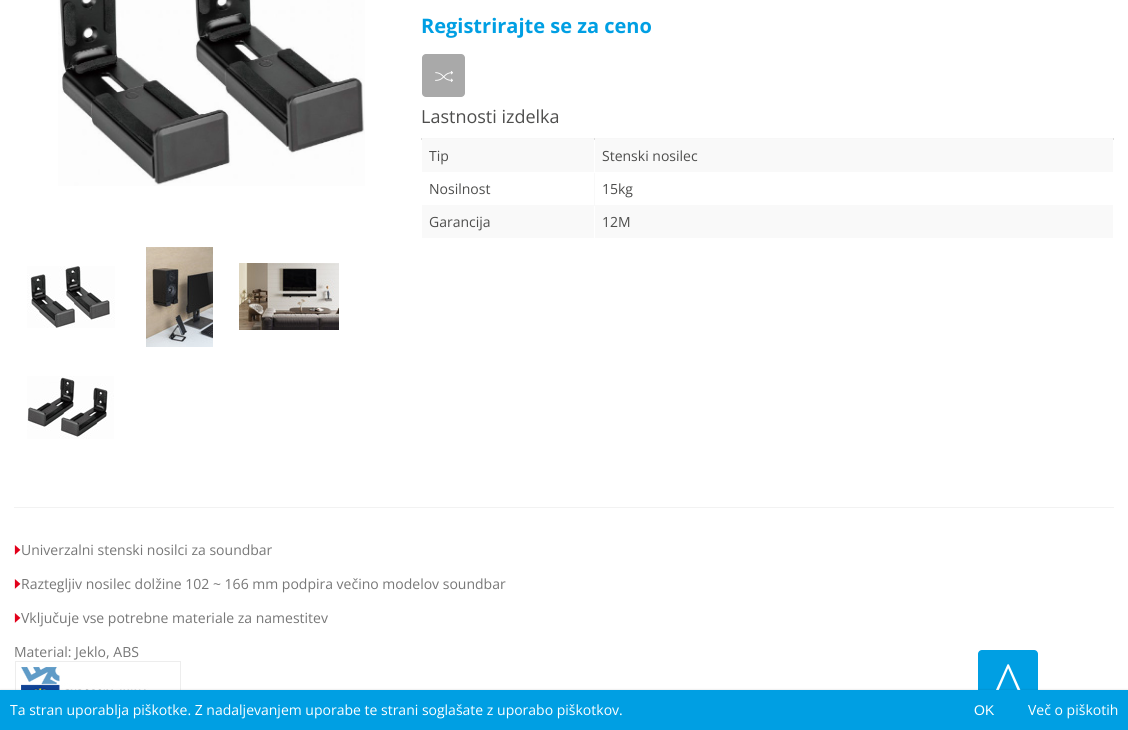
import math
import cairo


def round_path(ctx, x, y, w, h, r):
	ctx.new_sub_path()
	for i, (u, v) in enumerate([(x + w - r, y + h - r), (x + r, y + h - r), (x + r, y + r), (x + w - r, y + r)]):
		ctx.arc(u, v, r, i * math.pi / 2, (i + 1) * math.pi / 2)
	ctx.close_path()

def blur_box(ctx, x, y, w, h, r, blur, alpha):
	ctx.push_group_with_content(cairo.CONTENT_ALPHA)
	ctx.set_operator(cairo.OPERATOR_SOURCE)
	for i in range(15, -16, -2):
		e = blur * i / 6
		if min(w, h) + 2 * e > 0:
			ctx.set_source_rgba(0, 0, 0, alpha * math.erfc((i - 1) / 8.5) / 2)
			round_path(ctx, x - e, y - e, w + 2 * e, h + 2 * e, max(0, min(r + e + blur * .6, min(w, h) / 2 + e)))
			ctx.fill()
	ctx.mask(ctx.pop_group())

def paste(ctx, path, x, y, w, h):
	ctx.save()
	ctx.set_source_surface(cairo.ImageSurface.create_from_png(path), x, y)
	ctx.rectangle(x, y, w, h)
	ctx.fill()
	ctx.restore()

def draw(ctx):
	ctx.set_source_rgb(1, 1, 1)
	ctx.paint()
	paste(ctx, 'media/1.png', 58, 0, 307, 186)
	paste(ctx, 'media/2.png', 27, 266, 88, 62)
	paste(ctx, 'media/3.png', 146, 247, 67, 100)
	paste(ctx, 'media/4.png', 239, 263, 100, 67)
	paste(ctx, 'media/5.png', 27, 376, 87, 63)
	ctx.select_font_face('Open Sans', cairo.FONT_SLANT_NORMAL, cairo.FONT_WEIGHT_BOLD)
	ctx.set_font_size(20)
	ctx.set_source_rgb(0, 0.624, 0.89)
	ctx.move_to(421, 33)
	ctx.show_text('Registrirajte se za ceno')
	ctx.set_source_rgb(0.663, 0.663, 0.663)
	round_path(ctx, 422, 54, 43, 43, 4)
	ctx.fill()
	paste(ctx, 'media/6.png', 435, 71, 18, 11)
	ctx.select_font_face('Open Sans')
	ctx.set_font_size(18)
	ctx.set_source_rgb(0.306, 0.306, 0.302)
	ctx.move_to(421, 123)
	ctx.show_text('Lastnosti izdelka')
	ctx.set_source_rgb(0.965, 0.965, 0.965)
	ctx.rectangle(422, 138, 692, 1)
	ctx.fill()
	ctx.set_source_rgb(0.867, 0.867, 0.867)
	ctx.rectangle(421, 138, 1, 2)
	ctx.rectangle(1113, 138, 1, 2)
	ctx.rectangle(594, 138, 1, 2)
	ctx.fill()
	ctx.set_source_rgb(0.973, 0.973, 0.973)
	ctx.rectangle(422, 139, 172, 33)
	ctx.rectangle(594, 172, 1, 34)
	ctx.fill()
	ctx.set_source_rgb(1, 1, 1)
	ctx.rectangle(594, 172, 1, 1)
	ctx.fill()
	ctx.set_font_size(14)
	ctx.set_source_rgb(0.306, 0.306, 0.302)
	ctx.move_to(429, 161)
	ctx.show_text('Tip')
	ctx.set_source_rgb(0.973, 0.973, 0.973)
	ctx.rectangle(595, 139, 518, 33)
	ctx.fill()
	ctx.set_source_rgb(0.306, 0.306, 0.302)
	for x, y, s in [
		(602, 161, 'Stenski nosilec'),
		(429, 194, 'Nosilnost'),
		(602, 194, '15kg'),
	]:
		ctx.move_to(x, y)
		ctx.show_text(s)
	ctx.set_source_rgb(0.973, 0.973, 0.973)
	ctx.rectangle(422, 205, 172, 33)
	ctx.fill()
	ctx.set_source_rgb(0.306, 0.306, 0.302)
	ctx.move_to(429, 227)
	ctx.show_text('Garancija')
	ctx.set_source_rgb(0.973, 0.973, 0.973)
	ctx.rectangle(595, 205, 518, 33)
	ctx.fill()
	ctx.set_source_rgb(0.306, 0.306, 0.302)
	ctx.move_to(602, 227)
	ctx.show_text('12M')
	ctx.set_source_rgb(0.949, 0.949, 0.949)
	ctx.rectangle(14, 507, 1100, 1)
	ctx.fill()
	paste(ctx, 'media/7.png', 14, 545, 7, 10)
	ctx.set_source_rgb(0.467, 0.467, 0.467)
	ctx.move_to(21, 555)
	ctx.show_text('Univerzalni stenski nosilci za soundbar')
	paste(ctx, 'media/7.png', 14, 579, 7, 10)
	ctx.move_to(21, 589)
	ctx.show_text('Raztegljiv nosilec dolžine 102 ~ 166 mm podpira večino modelov soundbar')
	paste(ctx, 'media/7.png', 14, 613, 7, 10)
	ctx.move_to(21, 623)
	ctx.show_text('Vključuje vse potrebne materiale za namestitev')
	ctx.move_to(14, 657)
	ctx.show_text('Material: Jeklo, ABS')
	ctx.rectangle(15.5, 661.5, 165, 68)
	ctx.set_source_rgb(0.929, 0.929, 0.929)
	ctx.set_line_width(1)
	ctx.stroke()
	paste(ctx, 'media/8.png', 21, 667, 154, 23)
	ctx.set_source_rgb(0, 0.624, 0.89)
	round_path(ctx, 978, 650, 60, 50, 4)
	ctx.fill()
	ctx.select_font_face('Liberation Serif')
	ctx.set_font_size(56)
	ctx.set_source_rgb(1, 1, 1)
	ctx.move_to(995, 701)
	ctx.show_text('^')
	ctx.set_source_rgb(0, 0, 0)
	blur_box(ctx, 0, 690, 1128, 40, 0, 1, 0.15)
	ctx.set_source_rgb(0, 0.624, 0.89)
	ctx.rectangle(0, 690, 1128, 40)
	ctx.fill()
	ctx.select_font_face('Open Sans')
	ctx.set_font_size(14)
	ctx.set_source_rgb(1, 1, 1)
	ctx.move_to(10, 715)
	ctx.show_text('Ta stran uporablja piškotke. Z nadaljevanjem uporabe te strani soglašate z uporabo piškotkov.')
	ctx.select_font_face('Liberation Sans')
	ctx.move_to(974, 715)
	ctx.show_text('OK')
	ctx.select_font_face('Open Sans')
	ctx.move_to(1028, 715)
	ctx.show_text('Več o piškotih')


surface = cairo.ImageSurface(cairo.FORMAT_RGB24, 1128, 730)
ctx = cairo.Context(surface)
options = cairo.FontOptions()
options.set_hint_metrics(cairo.HINT_METRICS_OFF)
options.set_hint_style(cairo.HINT_STYLE_NONE)
ctx.set_font_options(options)
ctx.set_miter_limit(4)
draw(ctx)
surface.write_to_png('image.png')
